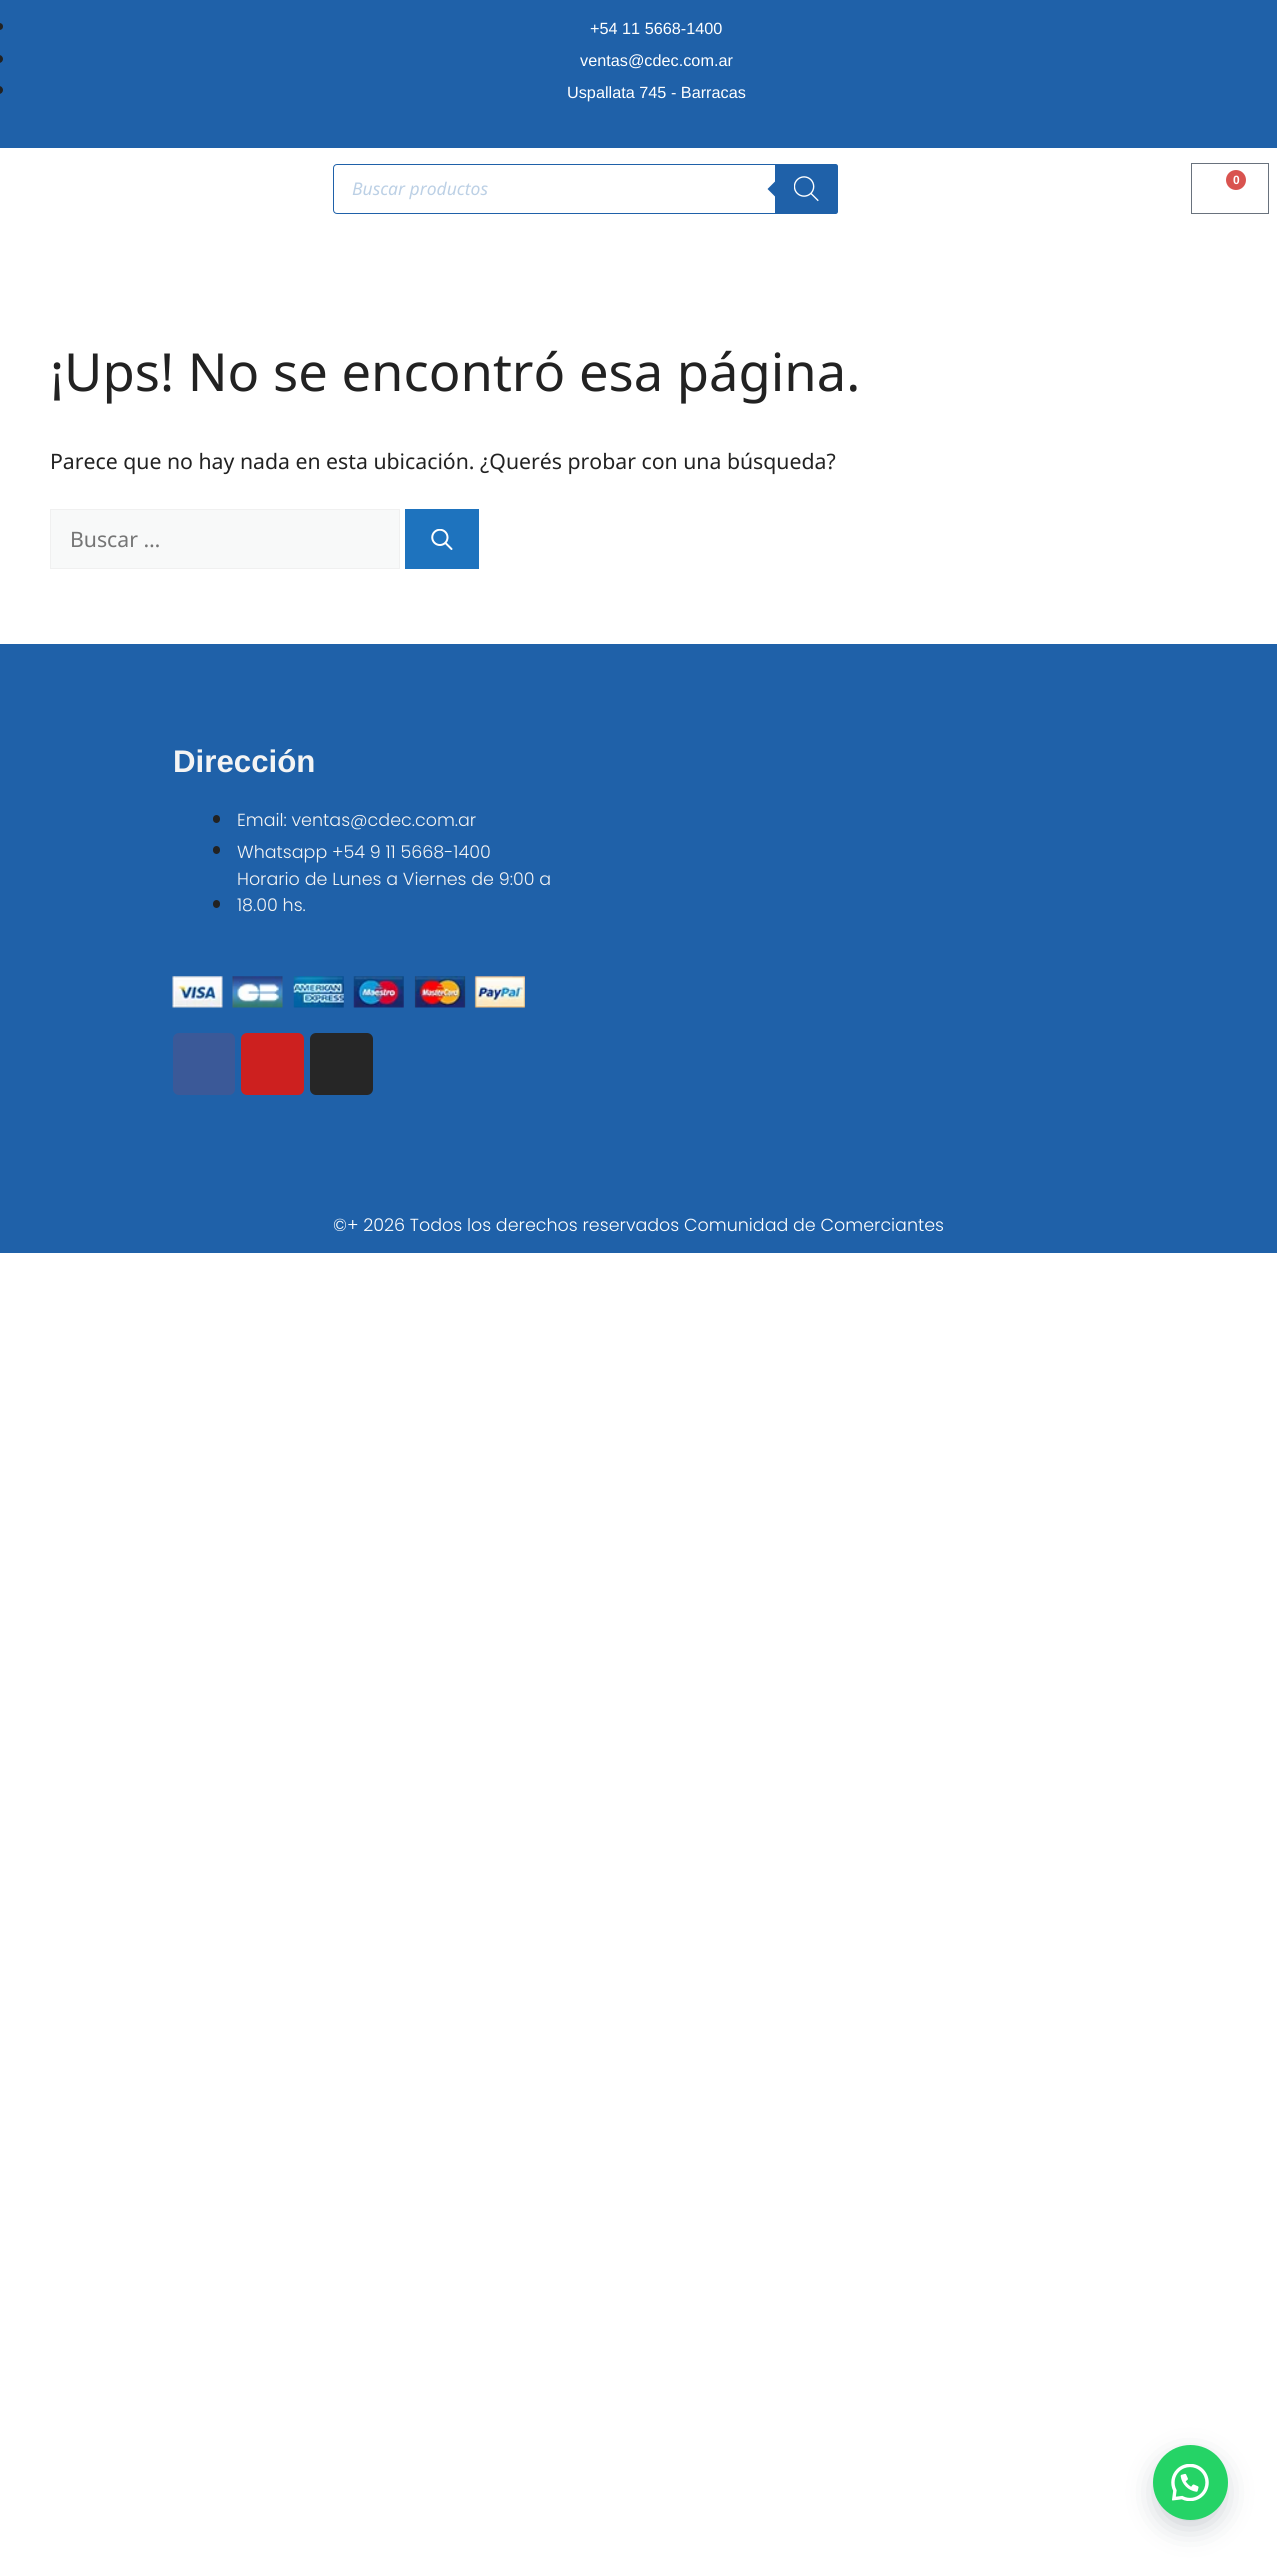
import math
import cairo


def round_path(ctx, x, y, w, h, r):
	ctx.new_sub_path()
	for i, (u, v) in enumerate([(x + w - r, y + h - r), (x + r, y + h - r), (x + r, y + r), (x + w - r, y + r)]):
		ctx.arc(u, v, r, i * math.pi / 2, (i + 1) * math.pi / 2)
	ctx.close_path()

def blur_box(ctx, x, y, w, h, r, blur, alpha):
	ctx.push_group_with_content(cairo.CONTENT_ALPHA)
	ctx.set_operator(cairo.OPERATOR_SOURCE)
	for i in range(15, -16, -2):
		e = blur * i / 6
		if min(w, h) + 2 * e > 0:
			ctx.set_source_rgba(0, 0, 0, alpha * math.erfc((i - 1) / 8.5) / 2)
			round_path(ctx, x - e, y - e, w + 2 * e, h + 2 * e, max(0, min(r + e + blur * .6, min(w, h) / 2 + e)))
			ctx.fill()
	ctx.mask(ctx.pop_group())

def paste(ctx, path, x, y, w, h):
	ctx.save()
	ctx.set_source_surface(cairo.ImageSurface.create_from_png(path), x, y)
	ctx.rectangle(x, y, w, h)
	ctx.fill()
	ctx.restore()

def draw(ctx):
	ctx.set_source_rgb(1, 1, 1)
	ctx.paint()
	ctx.set_source_rgb(0.122, 0.38, 0.663)
	ctx.rectangle(0, 0, 1277, 148)
	ctx.fill()
	ctx.set_source_rgb(0.133, 0.133, 0.133)
	ctx.arc(-0.5, 26.5, 3.5, 0, 2 * math.pi)
	ctx.fill()
	ctx.select_font_face('Liberation Sans')
	ctx.set_font_size(16.25)
	ctx.set_source_rgb(1, 1, 1)
	ctx.move_to(590, 34)
	ctx.show_text('+54 11 5668-1400')
	ctx.set_source_rgb(0.133, 0.133, 0.133)
	round_path(ctx, -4, 55, 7, 8, 4)
	ctx.fill()
	ctx.set_source_rgb(1, 1, 1)
	ctx.move_to(580, 66)
	ctx.show_text('ventas@cdec.com.ar')
	ctx.set_source_rgb(0.133, 0.133, 0.133)
	round_path(ctx, -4, 86, 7, 8, 4)
	ctx.fill()
	ctx.set_source_rgb(1, 1, 1)
	ctx.move_to(567, 98)
	ctx.show_text('Uspallata 745 - Barracas')
	ctx.rectangle(1191.5, 163.5, 77, 50)
	ctx.set_source_rgb(0.412, 0.447, 0.49)
	ctx.set_line_width(1)
	ctx.stroke()
	ctx.set_source_rgb(0.851, 0.325, 0.31)
	ctx.arc(1236, 180, 10, 0, 2 * math.pi)
	ctx.fill()
	ctx.select_font_face('Liberation Sans', cairo.FONT_SLANT_NORMAL, cairo.FONT_WEIGHT_BOLD)
	ctx.set_font_size(12)
	ctx.set_source_rgb(1, 1, 1)
	ctx.move_to(1233, 184)
	ctx.show_text('0')
	round_path(ctx, 333.5, 164.5, 504, 49, 3.5)
	ctx.set_source_rgb(0.122, 0.38, 0.663)
	ctx.stroke()
	ctx.select_font_face('Noto Sans', cairo.FONT_SLANT_ITALIC)
	ctx.set_font_size(17.5)
	ctx.set_source_rgb(0.737, 0.816, 0.898)
	ctx.move_to(352, 195)
	ctx.show_text('Buscar productos')
	ctx.set_source_rgb(0.122, 0.38, 0.663)
	ctx.new_path()
	ctx.move_to(775, 164)
	ctx.line_to(835.5, 164)
	ctx.curve_to(837, 164, 838, 165, 838, 166.5)
	ctx.line_to(838, 211.5)
	ctx.curve_to(838, 213, 837, 214, 835.5, 214)
	ctx.line_to(775, 214)
	ctx.close_path()
	ctx.fill()
	ctx.new_path()
	ctx.move_to(777.5, 179)
	ctx.line_to(777.5, 199)
	ctx.line_to(767.5, 189)
	ctx.close_path()
	ctx.fill()
	paste(ctx, 'media/1.png', 794, 176, 25, 26)
	ctx.select_font_face('Noto Sans')
	ctx.set_font_size(52.5)
	ctx.set_source_rgb(0.133, 0.133, 0.133)
	ctx.move_to(50, 391)
	ctx.show_text('¡Ups! No se encontró esa página.')
	ctx.set_font_size(21.25)
	ctx.move_to(50, 469)
	ctx.show_text('Parece que no hay nada en esta ubicación. ¿Querés probar con una búsqueda?')
	ctx.set_source_rgb(0.969, 0.973, 0.976)
	ctx.rectangle(50.5, 509.5, 349, 59)
	ctx.fill_preserve()
	ctx.set_source_rgb(0.941, 0.941, 0.941)
	ctx.stroke()
	ctx.set_source_rgb(0.459, 0.459, 0.459)
	ctx.move_to(70, 547)
	ctx.show_text('Buscar …')
	ctx.set_source_rgb(0.118, 0.451, 0.745)
	ctx.rectangle(405, 509, 74, 60)
	ctx.fill()
	paste(ctx, 'media/2.png', 431, 529, 22, 21)
	ctx.set_source_rgb(0.122, 0.38, 0.663)
	ctx.rectangle(0, 644, 1277, 609)
	ctx.fill()
	ctx.select_font_face('Liberation Sans', cairo.FONT_SLANT_NORMAL, cairo.FONT_WEIGHT_BOLD)
	ctx.set_font_size(31.25)
	ctx.set_source_rgb(0.957, 0.957, 0.957)
	ctx.move_to(173, 772)
	ctx.show_text('Dirección')
	ctx.set_source_rgb(0.133, 0.133, 0.133)
	round_path(ctx, 213, 815, 7, 8, 3.5)
	ctx.fill()
	ctx.select_font_face('Poppins Light')
	ctx.set_font_size(17.5)
	ctx.set_source_rgb(0.957, 0.957, 0.957)
	ctx.move_to(237, 826)
	ctx.show_text('Email: ventas@cdec.com.ar')
	ctx.set_source_rgb(0.133, 0.133, 0.133)
	round_path(ctx, 213, 846, 7, 8, 3.5)
	ctx.fill()
	ctx.set_source_rgb(0.957, 0.957, 0.957)
	ctx.move_to(237, 858)
	ctx.show_text('Whatsapp +54 9 11 5668-1400')
	ctx.set_source_rgb(0.133, 0.133, 0.133)
	round_path(ctx, 213, 900, 7, 8, 3.5)
	ctx.fill()
	ctx.set_source_rgb(0.957, 0.957, 0.957)
	ctx.move_to(237, 885)
	ctx.show_text('Horario de Lunes a Viernes de 9:00 a')
	ctx.move_to(237, 911)
	ctx.show_text('18.00 hs.')
	paste(ctx, 'media/3.png', 172, 976, 353, 32)
	ctx.set_source_rgb(0.231, 0.349, 0.596)
	round_path(ctx, 173, 1033, 62, 62, 6)
	ctx.fill()
	ctx.set_source_rgb(0.804, 0.125, 0.122)
	round_path(ctx, 241, 1033, 63, 62, 6)
	ctx.fill()
	ctx.set_source_rgb(0.149, 0.149, 0.149)
	round_path(ctx, 310, 1033, 63, 62, 6)
	ctx.fill()
	ctx.set_source_rgb(1, 1, 1)
	ctx.move_to(333, 1231)
	ctx.show_text('©+ 2026 Todos los derechos reservados Comunidad de Comerciantes')
	ctx.set_source_rgb(0.176, 0.243, 0.31)
	blur_box(ctx, 1159, 2461, 62, 63, 31, 15.5, 0.3)
	ctx.set_source_rgb(0.145, 0.827, 0.4)
	ctx.arc(1190.5, 2482.5, 37.5, 0, 2 * math.pi)
	ctx.fill()
	paste(ctx, 'media/4.png', 1171, 2464, 38, 37)


surface = cairo.ImageSurface(cairo.FORMAT_RGB24, 1277, 2570)
ctx = cairo.Context(surface)
options = cairo.FontOptions()
options.set_hint_metrics(cairo.HINT_METRICS_OFF)
options.set_hint_style(cairo.HINT_STYLE_NONE)
ctx.set_font_options(options)
ctx.set_miter_limit(4)
draw(ctx)
surface.write_to_png('image.png')
